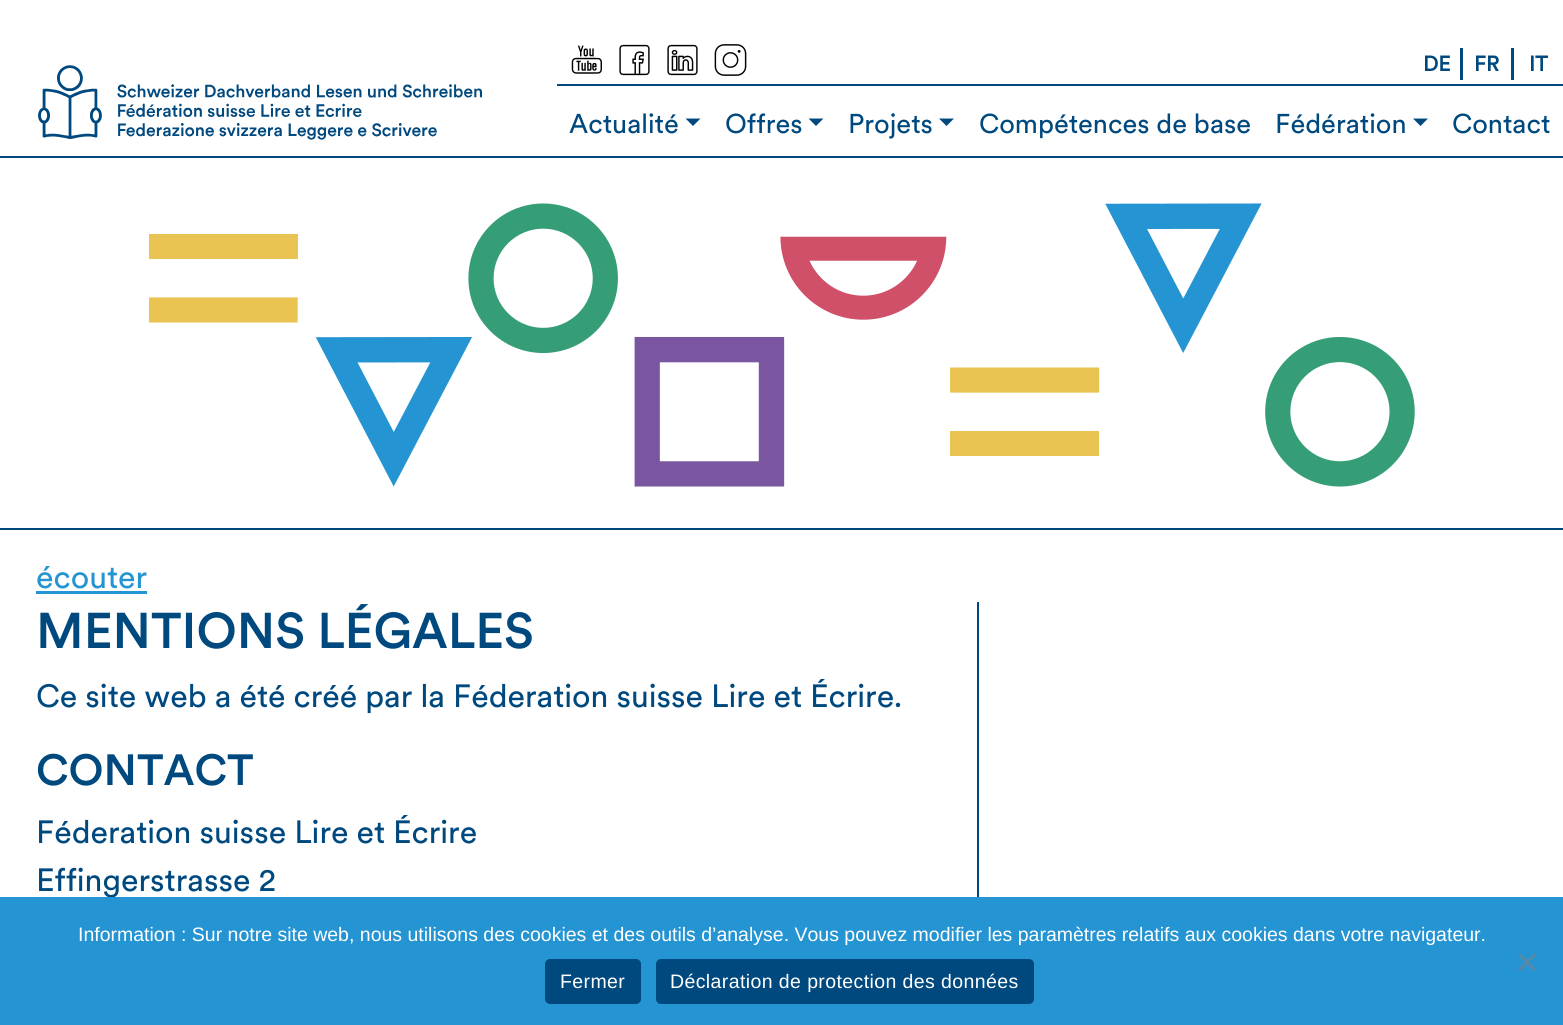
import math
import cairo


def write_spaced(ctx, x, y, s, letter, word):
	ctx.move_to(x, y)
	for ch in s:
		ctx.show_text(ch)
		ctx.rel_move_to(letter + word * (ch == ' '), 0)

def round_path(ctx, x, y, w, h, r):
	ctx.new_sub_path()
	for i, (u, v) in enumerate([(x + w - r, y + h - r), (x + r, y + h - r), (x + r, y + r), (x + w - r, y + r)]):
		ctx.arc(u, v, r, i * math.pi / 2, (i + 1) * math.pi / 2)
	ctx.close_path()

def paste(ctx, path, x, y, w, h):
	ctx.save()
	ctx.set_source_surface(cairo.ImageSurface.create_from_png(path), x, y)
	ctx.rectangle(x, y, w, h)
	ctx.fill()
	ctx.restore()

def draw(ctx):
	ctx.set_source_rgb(1, 1, 1)
	ctx.paint()
	ctx.set_source_rgb(0, 0.286, 0.498)
	ctx.rectangle(0, 156, 1563, 2)
	ctx.fill()
	paste(ctx, 'media/1.png', 38, 65, 444, 75)
	paste(ctx, 'media/2.png', 571, 45, 31, 29)
	paste(ctx, 'media/3.png', 619, 44, 31, 32)
	paste(ctx, 'media/4.png', 667, 44, 31, 32)
	paste(ctx, 'media/5.png', 714, 44, 33, 32)
	ctx.rectangle(1460, 48, 3, 32)
	ctx.fill()
	ctx.select_font_face('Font', cairo.FONT_SLANT_NORMAL, cairo.FONT_WEIGHT_BOLD)
	ctx.set_font_size(21)
	ctx.move_to(1423, 71)
	ctx.show_text('DE')
	ctx.rectangle(1511, 48, 3, 32)
	ctx.fill()
	ctx.move_to(1474, 71)
	ctx.show_text('FR')
	ctx.move_to(1529, 71)
	ctx.show_text('IT')
	ctx.rectangle(557, 84, 1006, 2)
	ctx.fill()
	ctx.select_font_face('Font')
	ctx.set_font_size(27)
	ctx.move_to(569, 133)
	ctx.show_text('Actualité')
	ctx.new_path()
	ctx.move_to(685.5, 118.5)
	ctx.line_to(700.5, 118.5)
	ctx.line_to(693, 126)
	ctx.close_path()
	ctx.fill()
	ctx.move_to(725, 133)
	ctx.show_text('Offres')
	ctx.new_path()
	ctx.move_to(808.5, 118.5)
	ctx.line_to(823.5, 118.5)
	ctx.line_to(816, 126)
	ctx.close_path()
	ctx.fill()
	ctx.move_to(848, 133)
	ctx.show_text('Projets')
	ctx.new_path()
	ctx.move_to(939, 118.5)
	ctx.line_to(954, 118.5)
	ctx.line_to(946.5, 126)
	ctx.close_path()
	ctx.fill()
	ctx.move_to(979, 133)
	ctx.show_text('Compétences de base')
	ctx.move_to(1275, 133)
	ctx.show_text('Fédération')
	ctx.new_path()
	ctx.move_to(1413, 118.5)
	ctx.line_to(1428, 118.5)
	ctx.line_to(1420.5, 126)
	ctx.close_path()
	ctx.fill()
	ctx.move_to(1452, 133)
	ctx.show_text('Contact')
	ctx.rectangle(0, 528, 1563, 2)
	ctx.fill()
	paste(ctx, 'media/6.png', 149, 203, 1266, 284)
	ctx.set_font_size(31.9)
	ctx.set_source_rgb(0.145, 0.58, 0.824)
	ctx.move_to(36, 588)
	ctx.show_text('écouter')
	ctx.rectangle(36, 591, 111, 3)
	ctx.fill()
	ctx.set_source_rgb(0, 0.286, 0.498)
	ctx.rectangle(977, 602, 2, 295)
	ctx.fill()
	ctx.select_font_face('Font Medium')
	ctx.set_font_size(49.75)
	ctx.move_to(36, 648)
	ctx.show_text('MENTIONS LÉGALES')
	ctx.select_font_face('Font')
	ctx.set_font_size(31.9)
	ctx.move_to(36, 707)
	ctx.show_text('Ce site web a été créé par la Féderation suisse Lire et Écrire.')
	ctx.select_font_face('Font Medium')
	ctx.set_font_size(43.25)
	ctx.move_to(36, 785)
	ctx.show_text('CONTACT')
	ctx.select_font_face('Font')
	ctx.set_font_size(31.9)
	ctx.move_to(36, 843)
	ctx.show_text('Féderation suisse Lire et Écrire')
	ctx.move_to(36, 891)
	ctx.show_text('Effingerstrasse 2')
	ctx.set_source_rgb(0.145, 0.58, 0.824)
	ctx.rectangle(0, 897, 1563, 128)
	ctx.fill()
	ctx.select_font_face('Liberation Sans')
	ctx.set_font_size(19.5)
	ctx.set_source_rgb(1, 1, 1)
	ctx.move_to(78, 941)
	ctx.show_text('Information : Sur notre site web, nous utilisons des cookies et des outils d’analyse. Vous pouvez modifier les paramètres relatifs aux cookies dans votre navigateur.')
	ctx.set_source_rgb(0.325, 0.541, 0.663)
	ctx.new_path()
	ctx.move_to(1534, 953)
	ctx.line_to(1536, 955.5)
	ctx.line_to(1520, 971.5)
	ctx.line_to(1518, 969)
	ctx.close_path()
	ctx.fill()
	ctx.new_path()
	ctx.move_to(1518, 955.5)
	ctx.line_to(1520, 953)
	ctx.line_to(1536, 969)
	ctx.line_to(1534, 971.5)
	ctx.close_path()
	ctx.fill()
	ctx.set_source_rgb(0, 0.286, 0.498)
	round_path(ctx, 545, 959, 96, 45, 5)
	ctx.fill()
	ctx.set_source_rgb(1, 1, 1)
	write_spaced(ctx, 560, 988, 'Fermer', 0.4, 0)
	ctx.set_source_rgb(0, 0.286, 0.498)
	round_path(ctx, 656, 959, 378, 45, 5)
	ctx.fill()
	ctx.set_source_rgb(1, 1, 1)
	write_spaced(ctx, 670, 988, 'Déclaration de protection des données', 0.4, 0)


surface = cairo.ImageSurface(cairo.FORMAT_RGB24, 1563, 1025)
ctx = cairo.Context(surface)
options = cairo.FontOptions()
options.set_hint_metrics(cairo.HINT_METRICS_OFF)
options.set_hint_style(cairo.HINT_STYLE_NONE)
ctx.set_font_options(options)
ctx.set_miter_limit(4)
draw(ctx)
surface.write_to_png('image.png')
